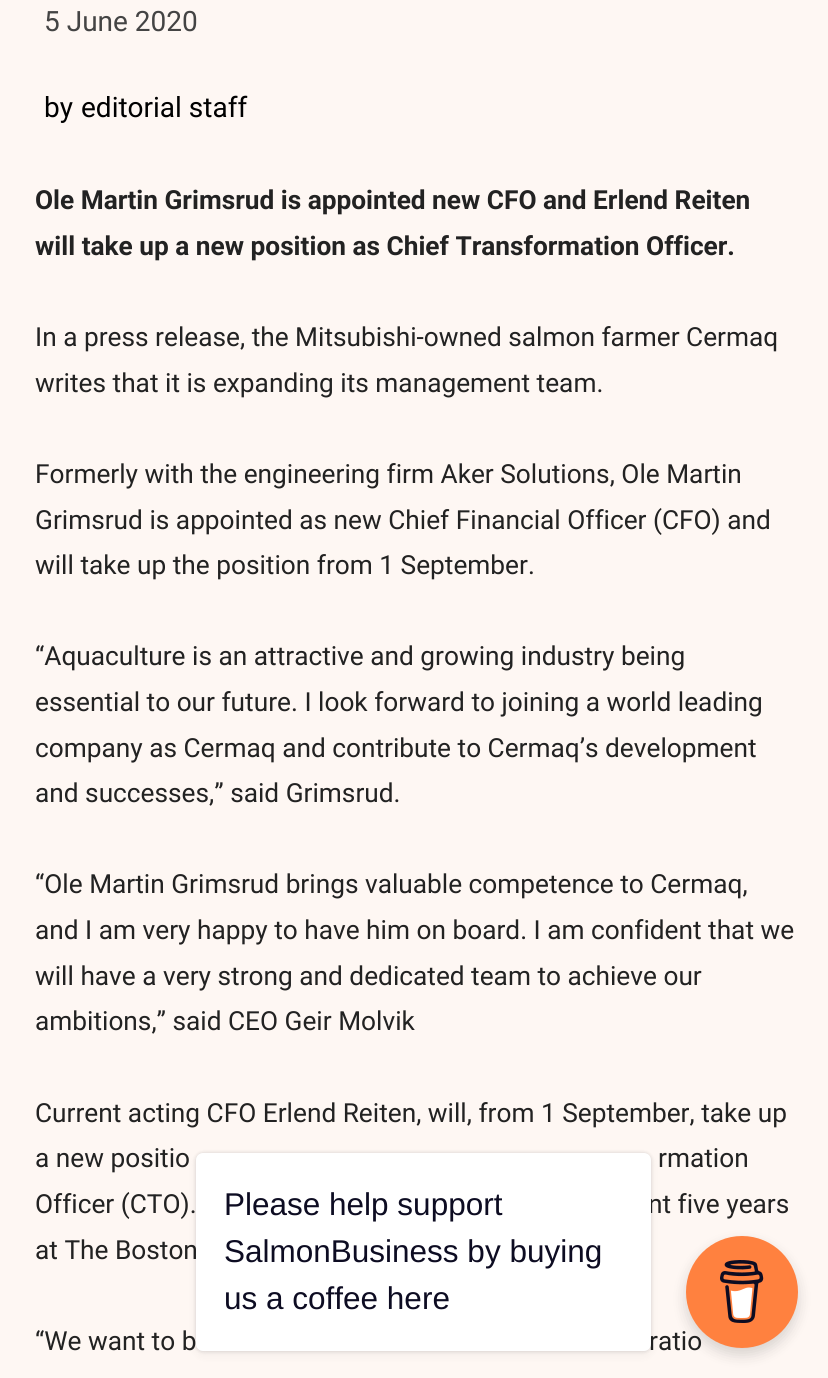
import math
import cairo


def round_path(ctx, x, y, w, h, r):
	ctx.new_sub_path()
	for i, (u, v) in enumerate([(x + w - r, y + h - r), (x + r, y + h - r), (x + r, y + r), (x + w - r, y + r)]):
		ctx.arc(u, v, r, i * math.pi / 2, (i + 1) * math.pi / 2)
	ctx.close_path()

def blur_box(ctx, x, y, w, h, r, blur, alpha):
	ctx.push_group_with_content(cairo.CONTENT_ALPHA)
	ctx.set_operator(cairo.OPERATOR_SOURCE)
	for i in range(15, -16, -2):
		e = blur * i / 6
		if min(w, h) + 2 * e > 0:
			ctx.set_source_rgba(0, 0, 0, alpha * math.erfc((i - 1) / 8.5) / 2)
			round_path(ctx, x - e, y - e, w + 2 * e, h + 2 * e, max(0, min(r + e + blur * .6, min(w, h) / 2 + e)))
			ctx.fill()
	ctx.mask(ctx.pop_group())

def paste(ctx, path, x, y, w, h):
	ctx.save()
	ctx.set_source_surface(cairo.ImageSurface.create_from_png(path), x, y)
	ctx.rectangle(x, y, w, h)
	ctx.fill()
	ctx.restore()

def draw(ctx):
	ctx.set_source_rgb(0.996, 0.965, 0.953)
	ctx.paint()
	ctx.select_font_face('Roboto')
	ctx.set_font_size(28)
	ctx.set_source_rgb(0.267, 0.267, 0.267)
	ctx.move_to(44, 31)
	ctx.show_text('5 June 2020')
	ctx.set_source_rgb(0, 0, 0)
	ctx.move_to(44, 117)
	ctx.show_text('by')
	ctx.move_to(81, 117)
	ctx.show_text('editorial staff')
	ctx.select_font_face('Roboto', cairo.FONT_SLANT_NORMAL, cairo.FONT_WEIGHT_BOLD)
	ctx.set_font_size(26.25)
	ctx.set_source_rgb(0.133, 0.133, 0.133)
	ctx.move_to(35, 209)
	ctx.show_text('Ole Martin Grimsrud is appointed new CFO and Erlend Reiten')
	ctx.move_to(35, 255)
	ctx.show_text('will take up a new position as Chief Transformation Officer.')
	ctx.select_font_face('Roboto')
	for x, y, s in [
		(35, 346, 'In a press release, the Mitsubishi-owned salmon farmer Cermaq'),
		(35, 392, 'writes that it is expanding its management team.'),
		(35, 483, 'Formerly with the engineering firm Aker Solutions, Ole Martin'),
		(35, 529, 'Grimsrud is appointed as new Chief Financial Officer (CFO) and'),
		(35, 574, 'will take up the position from 1 September.'),
		(35, 665, '“Aquaculture is an attractive and growing industry being'),
		(35, 711, 'essential to our future. I look forward to joining a world leading'),
		(35, 757, 'company as Cermaq and contribute to Cermaq’s development'),
		(35, 802, 'and successes,” said Grimsrud.'),
		(35, 893, '“Ole Martin Grimsrud brings valuable competence to Cermaq,'),
		(35, 939, 'and I am very happy to have him on board. I am confident that we'),
		(35, 985, 'will have a very strong and dedicated team to achieve our'),
		(35, 1030, 'ambitions,” said CEO Geir Molvik'),
		(35, 1122, 'Current acting CFO Erlend Reiten, will, from 1 September, take up'),
		(35, 1167, 'a new positio'),
		(658, 1167, 'rmation'),
		(35, 1213, 'Officer (CTO).'),
		(648, 1213, 'nt five years'),
		(35, 1259, 'at The Boston'),
		(35, 1350, '“We want to b'),
		(649, 1350, 'ratio'),
	]:
		ctx.move_to(x, y)
		ctx.show_text(s)
	ctx.set_source_rgb(0, 0, 0)
	blur_box(ctx, 196, 1153, 455, 198, 7, 2, 0.15)
	blur_box(ctx, 196, 1157, 455, 198, 7, 4.5, 0.05)
	ctx.set_source_rgb(1, 1, 1)
	round_path(ctx, 196, 1153, 455, 198, 7)
	ctx.fill()
	ctx.select_font_face('Liberation Sans')
	ctx.set_font_size(31.5)
	ctx.set_source_rgb(0.051, 0.047, 0.133)
	for x, y, s in [
		(224, 1215, 'Please help support'),
		(224, 1262, 'SalmonBusiness by buying'),
		(224, 1309, 'us a coffee here'),
	]:
		ctx.move_to(x, y)
		ctx.show_text(s)
	ctx.set_source_rgb(0, 0, 0)
	blur_box(ctx, 686, 1243, 112, 112, 56, 7, 0.15)
	ctx.set_source_rgb(1, 0.506, 0.247)
	ctx.arc(742, 1292, 56, 0, 2 * math.pi)
	ctx.fill()
	paste(ctx, 'media/1.png', 720, 1260, 44, 63)


surface = cairo.ImageSurface(cairo.FORMAT_RGB24, 828, 1378)
ctx = cairo.Context(surface)
options = cairo.FontOptions()
options.set_hint_metrics(cairo.HINT_METRICS_OFF)
options.set_hint_style(cairo.HINT_STYLE_NONE)
ctx.set_font_options(options)
ctx.set_miter_limit(4)
draw(ctx)
surface.write_to_png('image.png')
